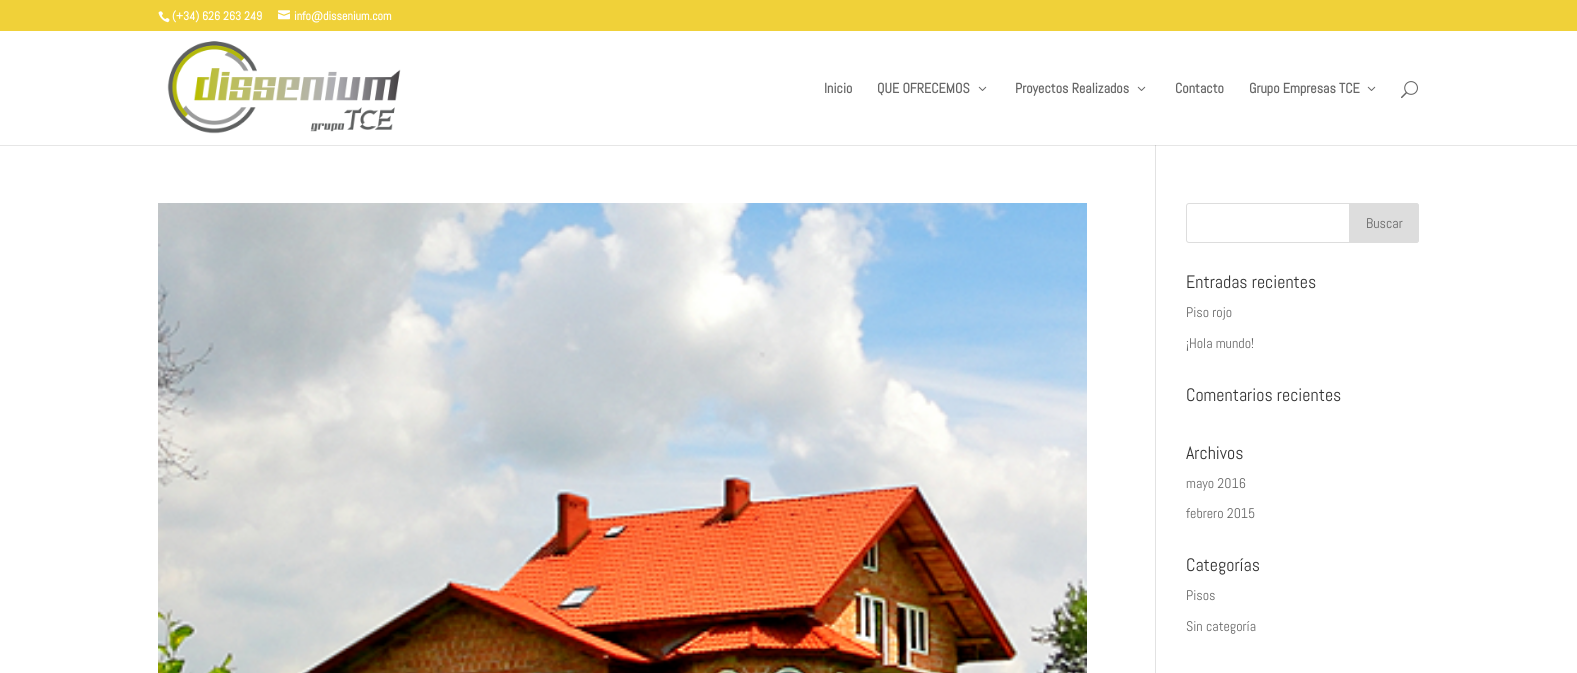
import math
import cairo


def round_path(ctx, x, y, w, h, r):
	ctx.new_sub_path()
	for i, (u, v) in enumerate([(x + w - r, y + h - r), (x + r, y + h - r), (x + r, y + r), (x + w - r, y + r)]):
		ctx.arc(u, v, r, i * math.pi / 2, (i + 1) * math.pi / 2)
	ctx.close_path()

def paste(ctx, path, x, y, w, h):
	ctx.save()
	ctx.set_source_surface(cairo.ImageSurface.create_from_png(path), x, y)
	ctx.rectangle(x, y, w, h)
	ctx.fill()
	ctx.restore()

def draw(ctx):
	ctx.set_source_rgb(0.941, 0.82, 0.224)
	ctx.paint()
	paste(ctx, 'media/1.png', 158, 11, 12, 12)
	ctx.select_font_face('Abel', cairo.FONT_SLANT_NORMAL, cairo.FONT_WEIGHT_BOLD)
	ctx.set_font_size(12)
	ctx.set_source_rgb(1, 1, 1)
	ctx.move_to(172, 20)
	ctx.show_text('(+34) 626 263 249')
	paste(ctx, 'media/2.png', 278, 10, 12, 10)
	ctx.move_to(294, 20)
	ctx.show_text('info@dissenium.com')
	ctx.rectangle(0, 31, 1577, 114)
	ctx.fill()
	paste(ctx, 'media/3.png', 167, 41, 234, 93)
	ctx.set_font_size(14)
	ctx.set_source_rgb(0.4, 0.4, 0.4)
	ctx.move_to(824, 93)
	ctx.show_text('Inicio')
	ctx.move_to(877, 93)
	ctx.show_text('QUE OFRECEMOS')
	paste(ctx, 'media/4.png', 978, 86, 9, 5)
	ctx.move_to(1015, 93)
	ctx.show_text('Proyectos Realizados')
	paste(ctx, 'media/4.png', 1137, 86, 9, 5)
	ctx.move_to(1175, 93)
	ctx.show_text('Contacto')
	ctx.move_to(1249, 93)
	ctx.show_text('Grupo Empresas TCE')
	paste(ctx, 'media/4.png', 1367, 86, 9, 5)
	paste(ctx, 'media/5.png', 1401, 81, 17, 18)
	ctx.set_source_rgb(1, 1, 1)
	ctx.rectangle(0, 146, 1577, 527)
	ctx.fill()
	ctx.set_source_rgb(0.902, 0.902, 0.902)
	ctx.rectangle(0, 145, 1577, 1)
	ctx.fill()
	ctx.set_source_rgb(0.886, 0.886, 0.886)
	ctx.rectangle(1155, 145, 1, 528)
	ctx.fill()
	ctx.set_source_rgb(0.796, 0.796, 0.796)
	ctx.rectangle(1155, 145, 1, 1)
	ctx.fill()
	paste(ctx, 'media/6.png', 158, 203, 929, 470)
	round_path(ctx, 1186.5, 203.5, 232, 39, 2.5)
	ctx.set_source_rgb(0.867, 0.867, 0.867)
	ctx.set_line_width(1)
	ctx.stroke()
	ctx.new_path()
	ctx.move_to(1349.5, 203.5)
	ctx.line_to(1416, 203.5)
	ctx.curve_to(1417.5, 203.5, 1418.5, 204.5, 1418.5, 206)
	ctx.line_to(1418.5, 240)
	ctx.curve_to(1418.5, 241.5, 1417.5, 242.5, 1416, 242.5)
	ctx.line_to(1349.5, 242.5)
	ctx.close_path()
	ctx.fill_preserve()
	ctx.stroke()
	ctx.select_font_face('Abel')
	ctx.set_source_rgb(0.4, 0.4, 0.4)
	ctx.move_to(1366, 228)
	ctx.show_text('Buscar')
	ctx.set_font_size(18)
	ctx.set_source_rgb(0.2, 0.2, 0.2)
	ctx.move_to(1186, 288)
	ctx.show_text('Entradas recientes')
	ctx.set_font_size(14)
	ctx.set_source_rgb(0.4, 0.4, 0.4)
	ctx.move_to(1186, 317)
	ctx.show_text('Piso rojo')
	ctx.move_to(1186, 348)
	ctx.show_text('¡Hola mundo!')
	ctx.set_font_size(18)
	ctx.set_source_rgb(0.2, 0.2, 0.2)
	ctx.move_to(1186, 401)
	ctx.show_text('Comentarios recientes')
	ctx.move_to(1186, 459)
	ctx.show_text('Archivos')
	ctx.set_font_size(14)
	ctx.set_source_rgb(0.4, 0.4, 0.4)
	ctx.move_to(1186, 488)
	ctx.show_text('mayo 2016')
	ctx.move_to(1186, 518)
	ctx.show_text('febrero 2015')
	ctx.set_font_size(18)
	ctx.set_source_rgb(0.2, 0.2, 0.2)
	ctx.move_to(1186, 571)
	ctx.show_text('Categorías')
	ctx.set_font_size(14)
	ctx.set_source_rgb(0.4, 0.4, 0.4)
	ctx.move_to(1186, 600)
	ctx.show_text('Pisos')
	ctx.move_to(1186, 631)
	ctx.show_text('Sin categoría')


surface = cairo.ImageSurface(cairo.FORMAT_RGB24, 1577, 673)
ctx = cairo.Context(surface)
options = cairo.FontOptions()
options.set_hint_metrics(cairo.HINT_METRICS_OFF)
options.set_hint_style(cairo.HINT_STYLE_NONE)
ctx.set_font_options(options)
ctx.set_miter_limit(4)
draw(ctx)
surface.write_to_png('image.png')
